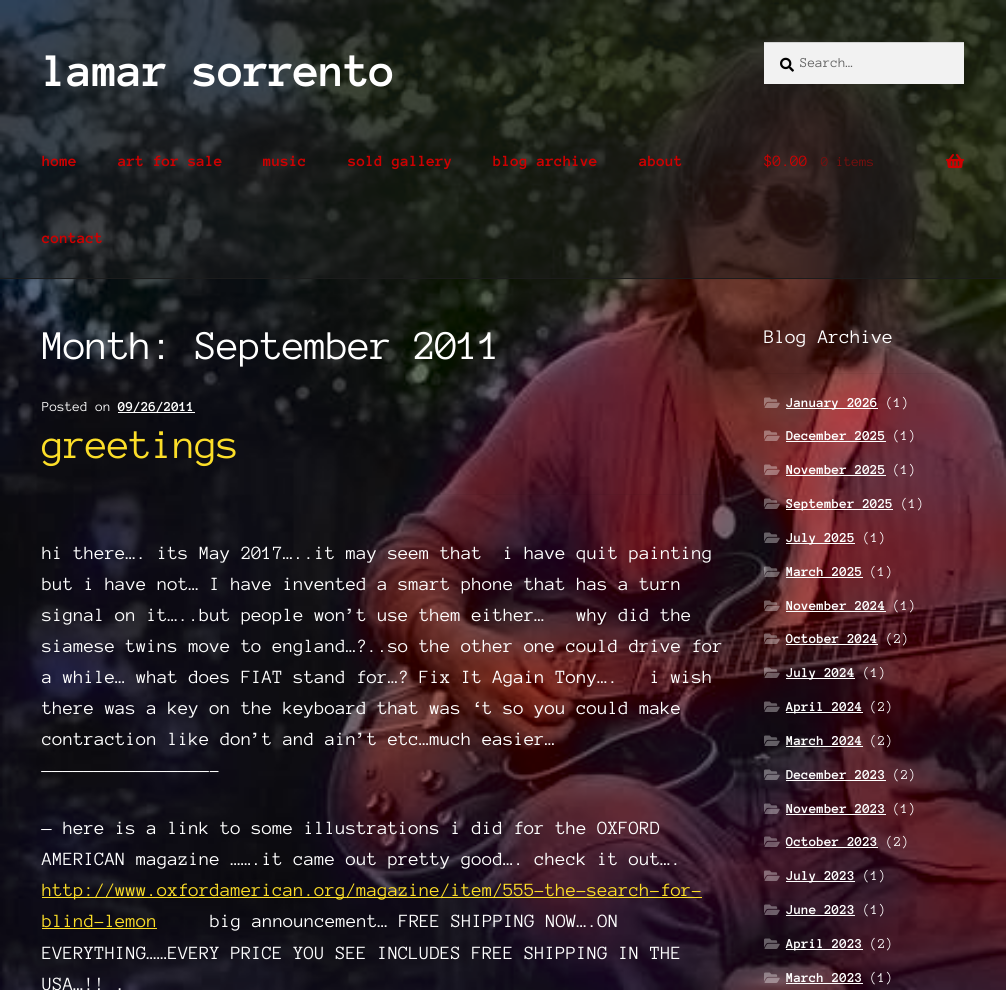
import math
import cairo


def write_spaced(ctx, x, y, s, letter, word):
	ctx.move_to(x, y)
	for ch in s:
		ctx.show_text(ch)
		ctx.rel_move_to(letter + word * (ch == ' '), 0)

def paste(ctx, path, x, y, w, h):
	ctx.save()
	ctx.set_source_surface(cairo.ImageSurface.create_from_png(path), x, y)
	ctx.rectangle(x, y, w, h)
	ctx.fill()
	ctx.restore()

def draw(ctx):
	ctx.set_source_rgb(1, 1, 1)
	ctx.paint()
	paste(ctx, 'media/1.png', 0, 0, 1006, 990)
	ctx.set_source_rgba(0.11, 0.11, 0.11, 0.5)
	ctx.rectangle(0, 0, 1006, 278)
	ctx.fill()
	ctx.set_source_rgb(0.11, 0.11, 0.11)
	ctx.rectangle(0, 278, 1006, 1)
	ctx.fill()
	ctx.select_font_face('Anonymous Pro', cairo.FONT_SLANT_NORMAL, cairo.FONT_WEIGHT_BOLD)
	ctx.set_font_size(48)
	ctx.set_source_rgb(1, 1, 1)
	write_spaced(ctx, 42, 86, 'lamar sorrento', -1, 0)
	ctx.set_source_rgb(0.949, 0.949, 0.949)
	ctx.rectangle(764, 43, 200, 41)
	ctx.fill()
	paste(ctx, 'media/2.png', 780, 57, 14, 15)
	ctx.set_source_rgb(0.831, 0.831, 0.831)
	ctx.rectangle(764, 42, 200, 1)
	ctx.fill()
	ctx.select_font_face('Anonymous Pro')
	ctx.set_font_size(14)
	ctx.set_source_rgb(0.38, 0.38, 0.38)
	ctx.move_to(800, 67)
	ctx.show_text('Search…')
	ctx.select_font_face('Anonymous Pro', cairo.FONT_SLANT_NORMAL, cairo.FONT_WEIGHT_BOLD)
	ctx.set_font_size(16)
	ctx.set_source_rgb(0.808, 0, 0)
	for x, y, s in [
		(42, 166, 'home'),
		(118, 166, 'art for sale'),
		(263, 166, 'music'),
		(348, 166, 'sold gallery'),
		(493, 166, 'blog archive'),
		(639, 166, 'about'),
		(42, 243, 'contact'),
	]:
		ctx.move_to(x, y)
		ctx.show_text(s)
	ctx.select_font_face('Anonymous Pro')
	ctx.move_to(764, 166)
	ctx.show_text('$0.00')
	ctx.set_font_size(14)
	ctx.set_source_rgb(0.475, 0.055, 0.051)
	ctx.move_to(821, 166)
	ctx.show_text('0 items')
	paste(ctx, 'media/3.png', 946, 154, 18, 14)
	ctx.set_font_size(41.9)
	ctx.set_source_rgb(1, 1, 1)
	write_spaced(ctx, 42, 359, 'Month: September 2011', -1, 0)
	ctx.set_source_rgba(0, 0, 0, 0.05)
	ctx.rectangle(438, 494, 286, 1)
	ctx.fill()
	ctx.set_font_size(14)
	ctx.set_source_rgb(1, 1, 1)
	ctx.move_to(42, 411)
	ctx.show_text('Posted on')
	ctx.rectangle(118, 412, 77, 1)
	ctx.fill()
	ctx.select_font_face('Anonymous Pro', cairo.FONT_SLANT_NORMAL, cairo.FONT_WEIGHT_BOLD)
	ctx.move_to(118, 411)
	ctx.show_text('09/26/2011')
	ctx.select_font_face('Anonymous Pro')
	ctx.set_font_size(41.9)
	ctx.set_source_rgb(0.988, 0.871, 0.157)
	write_spaced(ctx, 42, 458, 'greetings', -1, 0)
	ctx.set_font_size(19.2)
	ctx.set_source_rgb(1, 1, 1)
	for x, y, s in [
		(42, 559, 'hi there…. its May 2017…..it may seem that  i have quit painting'),
		(42, 590, 'but i have not… I have invented a smart phone that has a turn'),
		(42, 621, 'signal on it…..but people won’t use them either…   why did the'),
		(42, 652, 'siamese twins move to england…?..so the other one could drive for'),
		(42, 683, 'a while… what does FIAT stand for…? Fix It Again Tony….   i wish'),
		(42, 714, 'there was a key on the keyboard that was ‘t so you could make'),
		(42, 745, 'contraction like don’t and ain’t etc…much easier…'),
		(42, 776, '————————————————–'),
		(42, 834, '— here is a link to some illustrations i did for the OXFORD'),
		(42, 865, 'AMERICAN magazine …….it came out pretty good…. check it out….'),
	]:
		ctx.move_to(x, y)
		ctx.show_text(s)
	ctx.set_source_rgb(0.988, 0.871, 0.157)
	ctx.rectangle(42, 897, 660, 1)
	ctx.fill()
	ctx.move_to(42, 896)
	ctx.show_text('http://www.oxfordamerican.org/magazine/item/555-the-search-for-')
	ctx.move_to(42, 927)
	ctx.show_text('blind-lemon')
	ctx.rectangle(42, 928, 115, 1)
	ctx.fill()
	ctx.set_source_rgb(1, 1, 1)
	for x, y, s in [
		(210, 927, 'big announcement… FREE SHIPPING NOW….ON'),
		(42, 959, 'EVERYTHING……EVERY PRICE YOU SEE INCLUDES FREE SHIPPING IN THE'),
		(42, 990, 'USA…!! .'),
	]:
		ctx.move_to(x, y)
		ctx.show_text(s)
	ctx.set_source_rgba(0, 0, 0, 0.05)
	ctx.rectangle(764, 373, 189, 1)
	ctx.fill()
	ctx.set_font_size(19.75)
	ctx.set_source_rgb(1, 1, 1)
	ctx.move_to(764, 343)
	ctx.show_text('Blog Archive')
	paste(ctx, 'media/4.png', 764, 397, 16, 11)
	ctx.rectangle(786, 408, 92, 1)
	ctx.fill()
	ctx.select_font_face('Anonymous Pro', cairo.FONT_SLANT_NORMAL, cairo.FONT_WEIGHT_BOLD)
	ctx.set_font_size(14)
	ctx.move_to(786, 407)
	ctx.show_text('January 2026')
	ctx.select_font_face('Anonymous Pro')
	ctx.move_to(886, 407)
	ctx.show_text('(1)')
	paste(ctx, 'media/5.png', 764, 430, 16, 11)
	ctx.select_font_face('Anonymous Pro', cairo.FONT_SLANT_NORMAL, cairo.FONT_WEIGHT_BOLD)
	ctx.move_to(786, 440)
	ctx.show_text('December 2025')
	ctx.rectangle(786, 441, 100, 1)
	ctx.fill()
	ctx.select_font_face('Anonymous Pro')
	ctx.move_to(893, 440)
	ctx.show_text('(1)')
	paste(ctx, 'media/6.png', 764, 464, 16, 11)
	ctx.select_font_face('Anonymous Pro', cairo.FONT_SLANT_NORMAL, cairo.FONT_WEIGHT_BOLD)
	ctx.move_to(786, 474)
	ctx.show_text('November 2025')
	ctx.rectangle(786, 475, 100, 1)
	ctx.fill()
	ctx.select_font_face('Anonymous Pro')
	ctx.move_to(893, 474)
	ctx.show_text('(1)')
	paste(ctx, 'media/7.png', 764, 498, 16, 11)
	ctx.rectangle(786, 509, 107, 1)
	ctx.fill()
	ctx.select_font_face('Anonymous Pro', cairo.FONT_SLANT_NORMAL, cairo.FONT_WEIGHT_BOLD)
	ctx.move_to(786, 508)
	ctx.show_text('September 2025')
	ctx.select_font_face('Anonymous Pro')
	ctx.move_to(901, 508)
	ctx.show_text('(1)')
	paste(ctx, 'media/8.png', 764, 532, 16, 11)
	ctx.rectangle(786, 543, 69, 1)
	ctx.fill()
	ctx.select_font_face('Anonymous Pro', cairo.FONT_SLANT_NORMAL, cairo.FONT_WEIGHT_BOLD)
	ctx.move_to(786, 542)
	ctx.show_text('July 2025')
	ctx.select_font_face('Anonymous Pro')
	ctx.move_to(863, 542)
	ctx.show_text('(1)')
	paste(ctx, 'media/9.png', 764, 566, 16, 11)
	ctx.select_font_face('Anonymous Pro', cairo.FONT_SLANT_NORMAL, cairo.FONT_WEIGHT_BOLD)
	ctx.move_to(786, 576)
	ctx.show_text('March 2025')
	ctx.rectangle(786, 577, 77, 1)
	ctx.fill()
	ctx.select_font_face('Anonymous Pro')
	ctx.move_to(870, 576)
	ctx.show_text('(1)')
	paste(ctx, 'media/10.png', 764, 600, 16, 11)
	ctx.select_font_face('Anonymous Pro', cairo.FONT_SLANT_NORMAL, cairo.FONT_WEIGHT_BOLD)
	ctx.move_to(786, 610)
	ctx.show_text('November 2024')
	ctx.rectangle(786, 611, 100, 1)
	ctx.fill()
	ctx.select_font_face('Anonymous Pro')
	ctx.move_to(893, 610)
	ctx.show_text('(1)')
	paste(ctx, 'media/11.png', 764, 633, 16, 11)
	ctx.select_font_face('Anonymous Pro', cairo.FONT_SLANT_NORMAL, cairo.FONT_WEIGHT_BOLD)
	ctx.move_to(786, 643)
	ctx.show_text('October 2024')
	ctx.rectangle(786, 644, 92, 1)
	ctx.fill()
	ctx.select_font_face('Anonymous Pro')
	ctx.move_to(886, 643)
	ctx.show_text('(2)')
	paste(ctx, 'media/12.png', 764, 667, 16, 11)
	ctx.rectangle(786, 678, 69, 1)
	ctx.fill()
	ctx.select_font_face('Anonymous Pro', cairo.FONT_SLANT_NORMAL, cairo.FONT_WEIGHT_BOLD)
	ctx.move_to(786, 677)
	ctx.show_text('July 2024')
	ctx.select_font_face('Anonymous Pro')
	ctx.move_to(863, 677)
	ctx.show_text('(1)')
	paste(ctx, 'media/13.png', 764, 701, 16, 11)
	ctx.rectangle(786, 712, 77, 1)
	ctx.fill()
	ctx.select_font_face('Anonymous Pro', cairo.FONT_SLANT_NORMAL, cairo.FONT_WEIGHT_BOLD)
	ctx.move_to(786, 711)
	ctx.show_text('April 2024')
	ctx.select_font_face('Anonymous Pro')
	ctx.move_to(870, 711)
	ctx.show_text('(2)')
	paste(ctx, 'media/14.png', 764, 735, 16, 11)
	ctx.select_font_face('Anonymous Pro', cairo.FONT_SLANT_NORMAL, cairo.FONT_WEIGHT_BOLD)
	ctx.move_to(786, 745)
	ctx.show_text('March 2024')
	ctx.rectangle(786, 746, 77, 1)
	ctx.fill()
	ctx.select_font_face('Anonymous Pro')
	ctx.move_to(870, 745)
	ctx.show_text('(2)')
	paste(ctx, 'media/15.png', 764, 769, 16, 11)
	ctx.select_font_face('Anonymous Pro', cairo.FONT_SLANT_NORMAL, cairo.FONT_WEIGHT_BOLD)
	ctx.move_to(786, 779)
	ctx.show_text('December 2023')
	ctx.rectangle(786, 780, 100, 1)
	ctx.fill()
	ctx.select_font_face('Anonymous Pro')
	ctx.move_to(893, 779)
	ctx.show_text('(2)')
	paste(ctx, 'media/16.png', 764, 803, 16, 11)
	ctx.select_font_face('Anonymous Pro', cairo.FONT_SLANT_NORMAL, cairo.FONT_WEIGHT_BOLD)
	ctx.move_to(786, 813)
	ctx.show_text('November 2023')
	ctx.rectangle(786, 814, 100, 1)
	ctx.fill()
	ctx.select_font_face('Anonymous Pro')
	ctx.move_to(893, 813)
	ctx.show_text('(1)')
	paste(ctx, 'media/17.png', 764, 836, 16, 11)
	ctx.select_font_face('Anonymous Pro', cairo.FONT_SLANT_NORMAL, cairo.FONT_WEIGHT_BOLD)
	ctx.move_to(786, 846)
	ctx.show_text('October 2023')
	ctx.rectangle(786, 847, 92, 1)
	ctx.fill()
	ctx.select_font_face('Anonymous Pro')
	ctx.move_to(886, 846)
	ctx.show_text('(2)')
	paste(ctx, 'media/18.png', 764, 870, 16, 11)
	ctx.rectangle(786, 881, 69, 1)
	ctx.fill()
	ctx.select_font_face('Anonymous Pro', cairo.FONT_SLANT_NORMAL, cairo.FONT_WEIGHT_BOLD)
	ctx.move_to(786, 880)
	ctx.show_text('July 2023')
	ctx.select_font_face('Anonymous Pro')
	ctx.move_to(863, 880)
	ctx.show_text('(1)')
	paste(ctx, 'media/19.png', 764, 904, 16, 11)
	ctx.select_font_face('Anonymous Pro', cairo.FONT_SLANT_NORMAL, cairo.FONT_WEIGHT_BOLD)
	ctx.move_to(786, 914)
	ctx.show_text('June 2023')
	ctx.rectangle(786, 915, 69, 1)
	ctx.fill()
	ctx.select_font_face('Anonymous Pro')
	ctx.move_to(863, 914)
	ctx.show_text('(1)')
	paste(ctx, 'media/20.png', 764, 938, 16, 11)
	ctx.rectangle(786, 949, 77, 1)
	ctx.fill()
	ctx.select_font_face('Anonymous Pro', cairo.FONT_SLANT_NORMAL, cairo.FONT_WEIGHT_BOLD)
	ctx.move_to(786, 948)
	ctx.show_text('April 2023')
	ctx.select_font_face('Anonymous Pro')
	ctx.move_to(870, 948)
	ctx.show_text('(2)')
	paste(ctx, 'media/21.png', 764, 972, 16, 11)
	ctx.select_font_face('Anonymous Pro', cairo.FONT_SLANT_NORMAL, cairo.FONT_WEIGHT_BOLD)
	ctx.move_to(786, 982)
	ctx.show_text('March 2023')
	ctx.rectangle(786, 983, 77, 1)
	ctx.fill()
	ctx.select_font_face('Anonymous Pro')
	ctx.move_to(870, 982)
	ctx.show_text('(1)')


surface = cairo.ImageSurface(cairo.FORMAT_RGB24, 1006, 990)
ctx = cairo.Context(surface)
options = cairo.FontOptions()
options.set_hint_metrics(cairo.HINT_METRICS_OFF)
options.set_hint_style(cairo.HINT_STYLE_NONE)
ctx.set_font_options(options)
ctx.set_miter_limit(4)
draw(ctx)
surface.write_to_png('image.png')
